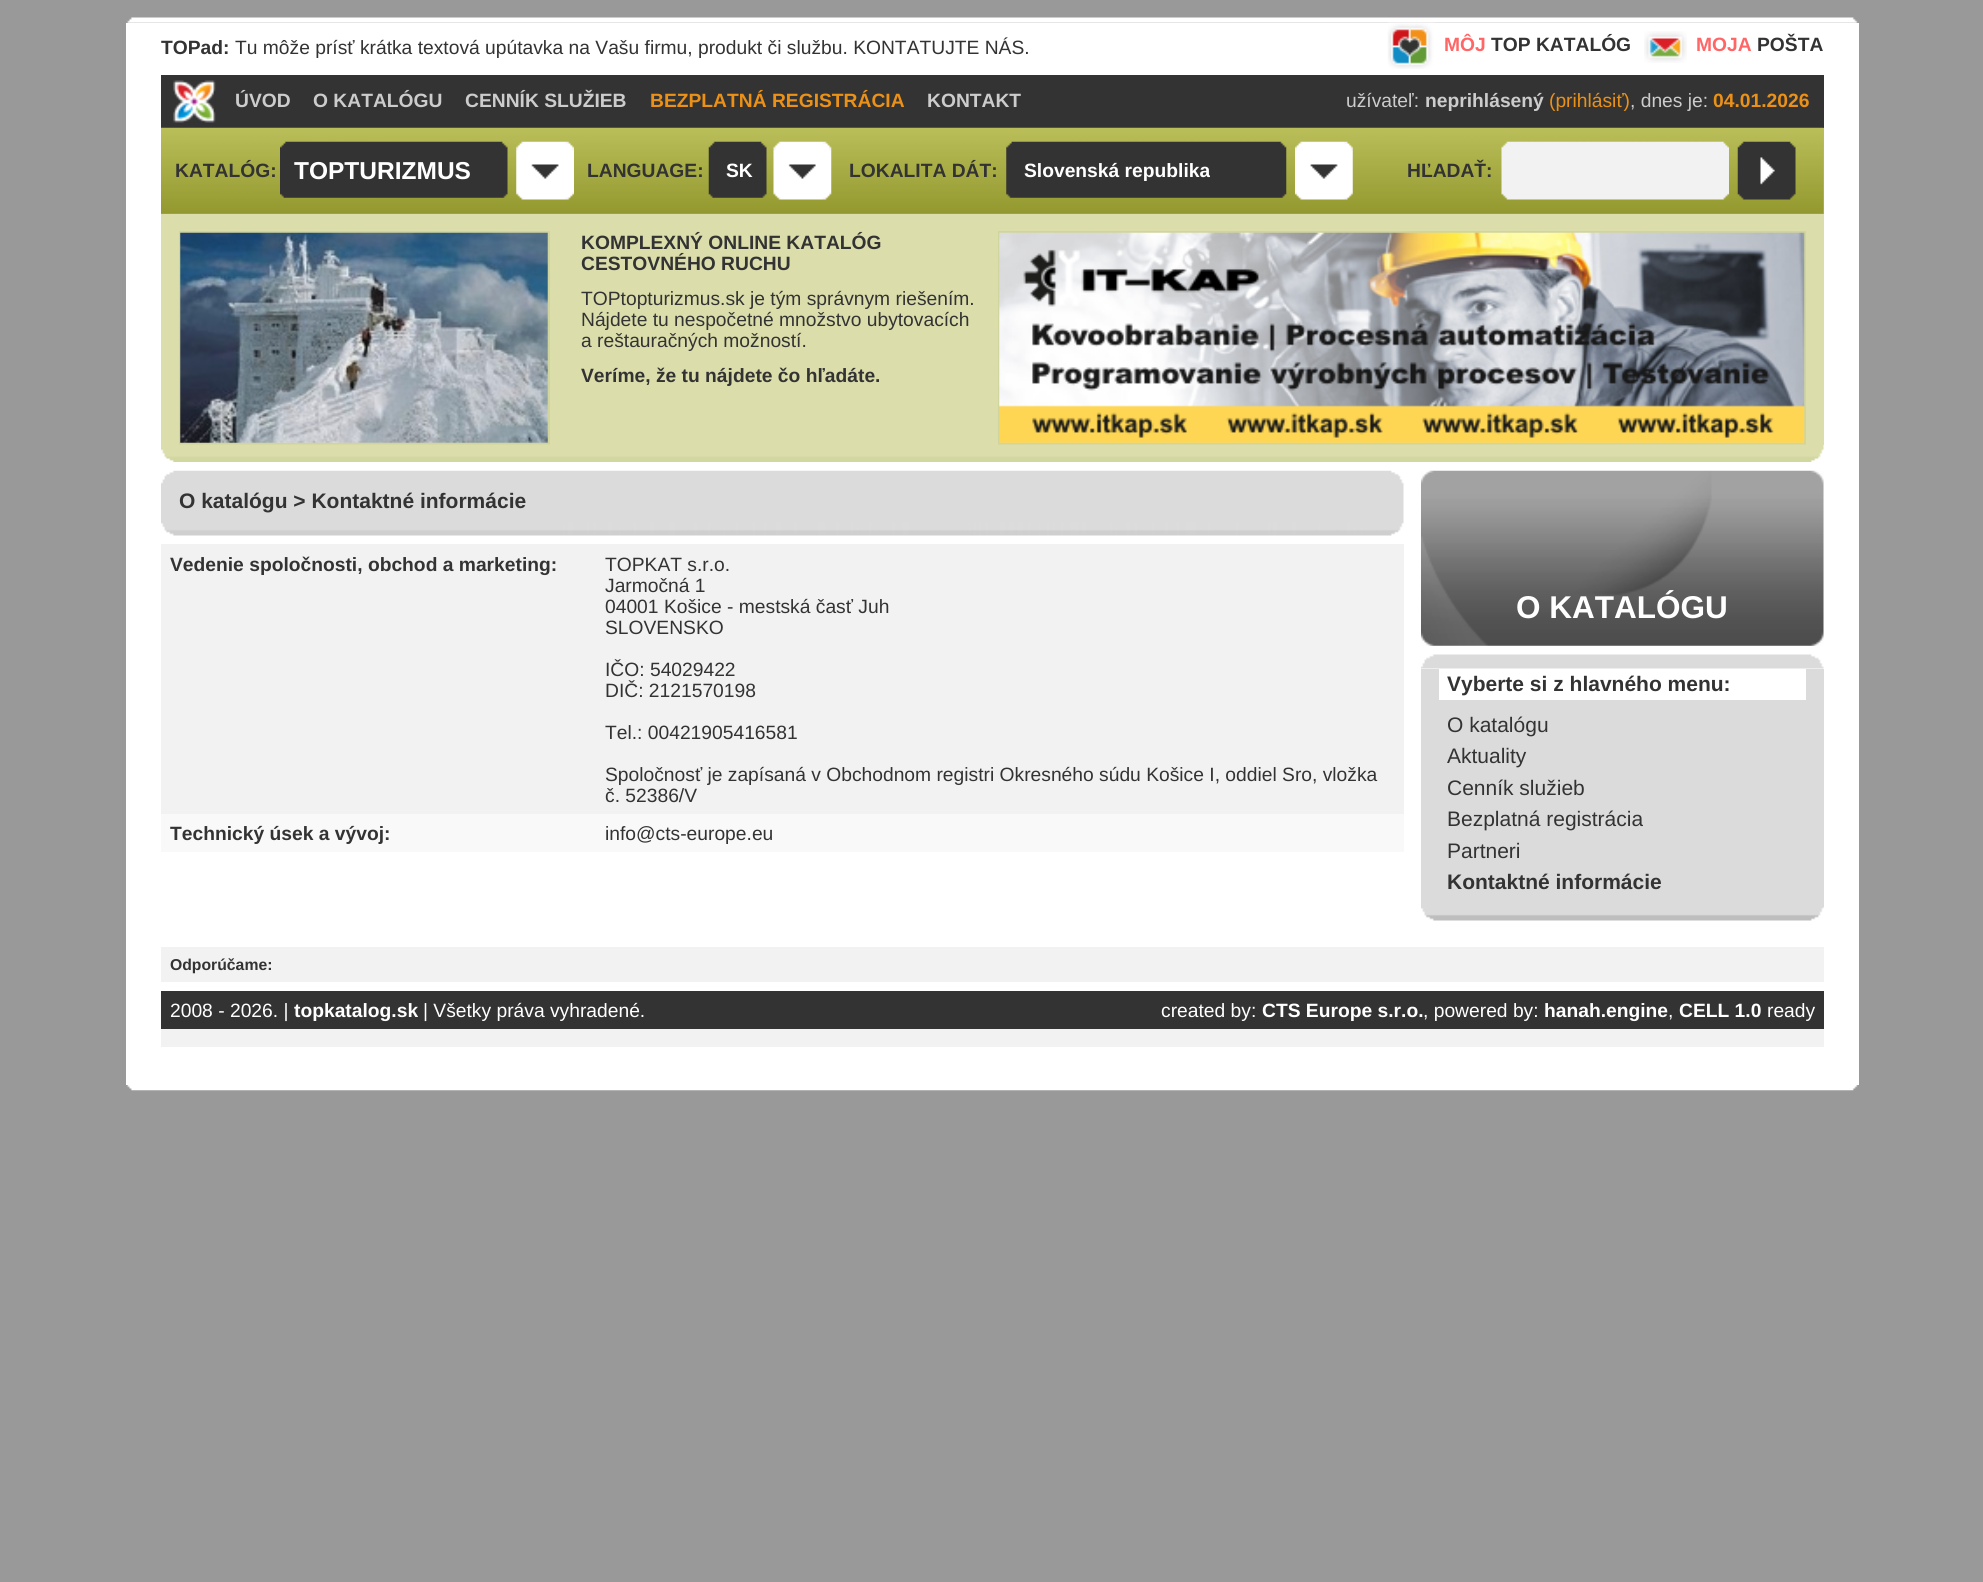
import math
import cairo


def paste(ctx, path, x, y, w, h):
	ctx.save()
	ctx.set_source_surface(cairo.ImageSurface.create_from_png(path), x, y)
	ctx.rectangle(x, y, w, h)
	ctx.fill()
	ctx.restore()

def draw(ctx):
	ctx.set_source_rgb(0.6, 0.6, 0.6)
	ctx.paint()
	ctx.set_source_rgb(1, 1, 1)
	ctx.rectangle(126, 23, 1733, 1062)
	ctx.fill()
	paste(ctx, 'media/2.png', 1387, 22, 48, 47)
	paste(ctx, 'media/1.png', 127, 17, 1731, 6)
	ctx.select_font_face('Liberation Sans', cairo.FONT_SLANT_NORMAL, cairo.FONT_WEIGHT_BOLD)
	ctx.set_font_size(19.25)
	ctx.set_source_rgb(0.2, 0.2, 0.2)
	ctx.move_to(161, 54)
	ctx.show_text('TOPad:')
	ctx.select_font_face('Liberation Sans')
	ctx.move_to(235, 54)
	ctx.show_text('Tu môže prísť krátka textová upútavka na Vašu firmu, produkt či službu. KONTATUJTE NÁS.')
	ctx.select_font_face('Liberation Sans', cairo.FONT_SLANT_NORMAL, cairo.FONT_WEIGHT_BOLD)
	ctx.set_source_rgb(1, 0.4, 0.4)
	ctx.move_to(1444, 51)
	ctx.show_text('MÔJ')
	ctx.set_source_rgb(0.2, 0.2, 0.2)
	ctx.move_to(1491, 51)
	ctx.show_text('TOP KATALÓG')
	paste(ctx, 'media/3.png', 1644, 31, 43, 32)
	ctx.set_source_rgb(1, 0.4, 0.4)
	ctx.move_to(1696, 51)
	ctx.show_text('MOJA')
	ctx.set_source_rgb(0.2, 0.2, 0.2)
	ctx.move_to(1757, 51)
	ctx.show_text('POŠTA')
	ctx.rectangle(161, 75, 1663, 53)
	ctx.fill()
	paste(ctx, 'media/4.png', 173, 80, 43, 43)
	ctx.set_source_rgb(0.8, 0.8, 0.8)
	for x, y, s in [
		(235, 107, 'ÚVOD'),
		(313, 107, 'O KATALÓGU'),
		(465, 107, 'CENNÍK SLUŽIEB'),
	]:
		ctx.move_to(x, y)
		ctx.show_text(s)
	ctx.set_source_rgb(0.918, 0.569, 0.09)
	ctx.move_to(650, 107)
	ctx.show_text('BEZPLATNÁ REGISTRÁCIA')
	ctx.set_source_rgb(0.8, 0.8, 0.8)
	ctx.move_to(927, 107)
	ctx.show_text('KONTAKT')
	ctx.select_font_face('Liberation Sans')
	ctx.move_to(1346, 107)
	ctx.show_text('užívateľ:')
	ctx.select_font_face('Liberation Sans', cairo.FONT_SLANT_NORMAL, cairo.FONT_WEIGHT_BOLD)
	ctx.move_to(1425, 107)
	ctx.show_text('neprihlásený')
	ctx.select_font_face('Liberation Sans')
	ctx.set_source_rgb(0.918, 0.569, 0.09)
	ctx.move_to(1549, 107)
	ctx.show_text('(prihlásiť)')
	ctx.set_source_rgb(0.8, 0.8, 0.8)
	ctx.move_to(1630, 107)
	ctx.show_text(', dnes je:')
	ctx.select_font_face('Liberation Sans', cairo.FONT_SLANT_NORMAL, cairo.FONT_WEIGHT_BOLD)
	ctx.set_source_rgb(0.918, 0.569, 0.09)
	ctx.move_to(1713, 107)
	ctx.show_text('04.01.2026')
	ctx.set_source_rgb(0.729, 0.749, 0.353)
	ctx.rectangle(161, 128, 1663, 86)
	ctx.fill()
	paste(ctx, 'media/5.png', 161, 127, 1663, 87)
	ctx.set_source_rgb(0.2, 0.2, 0.2)
	ctx.move_to(175, 177)
	ctx.show_text('KATALÓG:')
	paste(ctx, 'media/6.png', 280, 141, 228, 57)
	ctx.set_font_size(24.5)
	ctx.set_source_rgb(1, 1, 1)
	ctx.move_to(294, 179)
	ctx.show_text('TOPTURIZMUS')
	paste(ctx, 'media/7.png', 516, 141, 58, 59)
	ctx.set_font_size(19.25)
	ctx.set_source_rgb(0.2, 0.2, 0.2)
	ctx.move_to(587, 177)
	ctx.show_text('LANGUAGE:')
	paste(ctx, 'media/8.png', 708, 141, 59, 57)
	ctx.set_source_rgb(1, 1, 1)
	ctx.move_to(726, 177)
	ctx.show_text('SK')
	paste(ctx, 'media/9.png', 773, 141, 59, 59)
	ctx.set_source_rgb(0.2, 0.2, 0.2)
	ctx.move_to(849, 177)
	ctx.show_text('LOKALITA DÁT:')
	paste(ctx, 'media/10.png', 1006, 141, 281, 57)
	ctx.set_source_rgb(1, 1, 1)
	ctx.move_to(1024, 177)
	ctx.show_text('Slovenská republika')
	paste(ctx, 'media/11.png', 1295, 141, 58, 59)
	ctx.set_source_rgb(0.2, 0.2, 0.2)
	ctx.move_to(1407, 177)
	ctx.show_text('HĽADAŤ:')
	paste(ctx, 'media/12.png', 1501, 141, 228, 59)
	paste(ctx, 'media/13.png', 1737, 141, 59, 59)
	ctx.set_source_rgb(0.859, 0.871, 0.671)
	ctx.rectangle(161, 214, 1663, 231)
	ctx.fill()
	ctx.rectangle(180, 232, 369, 212)
	ctx.set_source_rgb(0.816, 0.831, 0.616)
	ctx.stroke()
	paste(ctx, 'media/14.png', 180, 232, 368, 211)
	ctx.set_source_rgb(0.2, 0.2, 0.2)
	ctx.move_to(581, 249)
	ctx.show_text('KOMPLEXNÝ ONLINE KATALÓG')
	ctx.move_to(581, 270)
	ctx.show_text('CESTOVNÉHO RUCHU')
	ctx.select_font_face('Liberation Sans')
	for x, y, s in [
		(581, 305, 'TOPtopturizmus.sk je tým správnym riešením.'),
		(581, 326, 'Nájdete tu nespočetné množstvo ubytovacích'),
		(581, 347, 'a reštauračných možností.'),
	]:
		ctx.move_to(x, y)
		ctx.show_text(s)
	ctx.select_font_face('Liberation Sans', cairo.FONT_SLANT_NORMAL, cairo.FONT_WEIGHT_BOLD)
	ctx.move_to(581, 382)
	ctx.show_text('Veríme, že tu nájdete čo hľadáte.')
	ctx.rectangle(999, 232, 806, 212)
	ctx.set_source_rgb(0.816, 0.831, 0.616)
	ctx.stroke()
	paste(ctx, 'media/15.png', 999, 232, 806, 211)
	paste(ctx, 'media/16.png', 161, 444, 1663, 18)
	paste(ctx, 'media/17.png', 161, 470, 1243, 66)
	ctx.set_font_size(21)
	ctx.set_source_rgb(0.2, 0.2, 0.2)
	ctx.move_to(179, 508)
	ctx.show_text('O katalógu > Kontaktné informácie')
	ctx.set_source_rgb(0.949, 0.949, 0.949)
	ctx.rectangle(161, 544, 1243, 270)
	ctx.fill()
	ctx.set_font_size(19.25)
	ctx.set_source_rgb(0.2, 0.2, 0.2)
	ctx.move_to(170, 571)
	ctx.show_text('Vedenie spoločnosti, obchod a marketing:')
	ctx.select_font_face('Liberation Sans')
	for x, y, s in [
		(605, 571, 'TOPKAT s.r.o.'),
		(605, 592, 'Jarmočná 1'),
		(605, 613, '04001 Košice - mestská časť Juh'),
		(605, 634, 'SLOVENSKO'),
		(605, 676, 'IČO: 54029422'),
		(605, 697, 'DIČ: 2121570198'),
		(605, 739, 'Tel.: 00421905416581'),
		(605, 781, 'Spoločnosť je zapísaná v Obchodnom registri Okresného súdu Košice I, oddiel Sro, vložka'),
		(605, 802, 'č. 52386/V'),
	]:
		ctx.move_to(x, y)
		ctx.show_text(s)
	ctx.set_source_rgb(0.973, 0.973, 0.973)
	ctx.rectangle(161, 814, 1243, 38)
	ctx.fill()
	ctx.select_font_face('Liberation Sans', cairo.FONT_SLANT_NORMAL, cairo.FONT_WEIGHT_BOLD)
	ctx.set_source_rgb(0.2, 0.2, 0.2)
	ctx.move_to(170, 840)
	ctx.show_text('Technický úsek a vývoj:')
	ctx.select_font_face('Liberation Sans')
	ctx.move_to(605, 840)
	ctx.show_text('info@cts-europe.eu')
	paste(ctx, 'media/18.png', 1421, 470, 403, 176)
	ctx.select_font_face('Liberation Sans', cairo.FONT_SLANT_NORMAL, cairo.FONT_WEIGHT_BOLD)
	ctx.set_font_size(31.5)
	ctx.set_source_rgb(1, 1, 1)
	ctx.move_to(1516, 618)
	ctx.show_text('O KATALÓGU')
	paste(ctx, 'media/19.png', 1421, 654, 403, 15)
	ctx.set_source_rgb(0.859, 0.859, 0.859)
	ctx.rectangle(1421, 669, 403, 238)
	ctx.fill()
	ctx.set_source_rgb(1, 1, 1)
	ctx.rectangle(1439, 669, 367, 31)
	ctx.fill()
	ctx.set_font_size(21)
	ctx.set_source_rgb(0.2, 0.2, 0.2)
	ctx.move_to(1447, 691)
	ctx.show_text('Vyberte si z hlavného menu:')
	ctx.select_font_face('Liberation Sans')
	for x, y, s in [
		(1447, 732, 'O katalógu'),
		(1447, 763, 'Aktuality'),
		(1447, 795, 'Cenník služieb'),
		(1447, 826, 'Bezplatná registrácia'),
		(1447, 858, 'Partneri'),
	]:
		ctx.move_to(x, y)
		ctx.show_text(s)
	ctx.select_font_face('Liberation Sans', cairo.FONT_SLANT_NORMAL, cairo.FONT_WEIGHT_BOLD)
	ctx.move_to(1447, 889)
	ctx.show_text('Kontaktné informácie')
	paste(ctx, 'media/20.png', 1421, 907, 403, 14)
	ctx.set_source_rgb(0.949, 0.949, 0.949)
	ctx.rectangle(161, 947, 1663, 35)
	ctx.fill()
	ctx.set_font_size(15.75)
	ctx.set_source_rgb(0.2, 0.2, 0.2)
	ctx.move_to(170, 970)
	ctx.show_text('Odporúčame:')
	ctx.rectangle(161, 991, 1663, 38)
	ctx.fill()
	ctx.select_font_face('Liberation Sans')
	ctx.set_font_size(19.25)
	ctx.set_source_rgb(1, 1, 1)
	ctx.move_to(170, 1017)
	ctx.show_text('2008 - 2026. |')
	ctx.select_font_face('Liberation Sans', cairo.FONT_SLANT_NORMAL, cairo.FONT_WEIGHT_BOLD)
	ctx.move_to(294, 1017)
	ctx.show_text('topkatalog.sk')
	ctx.select_font_face('Liberation Sans')
	ctx.move_to(423, 1017)
	ctx.show_text('| Všetky práva vyhradené.')
	ctx.move_to(1161, 1017)
	ctx.show_text('created by:')
	ctx.select_font_face('Liberation Sans', cairo.FONT_SLANT_NORMAL, cairo.FONT_WEIGHT_BOLD)
	ctx.move_to(1262, 1017)
	ctx.show_text('CTS Europe s.r.o.')
	ctx.select_font_face('Liberation Sans')
	ctx.move_to(1423, 1017)
	ctx.show_text(', powered by:')
	ctx.select_font_face('Liberation Sans', cairo.FONT_SLANT_NORMAL, cairo.FONT_WEIGHT_BOLD)
	ctx.move_to(1544, 1017)
	ctx.show_text('hanah.engine')
	ctx.select_font_face('Liberation Sans')
	ctx.move_to(1668, 1017)
	ctx.show_text(',')
	ctx.select_font_face('Liberation Sans', cairo.FONT_SLANT_NORMAL, cairo.FONT_WEIGHT_BOLD)
	ctx.move_to(1679, 1017)
	ctx.show_text('CELL 1.0')
	ctx.select_font_face('Liberation Sans')
	ctx.move_to(1767, 1017)
	ctx.show_text('ready')
	ctx.set_source_rgb(0.949, 0.949, 0.949)
	ctx.rectangle(161, 1029, 1663, 18)
	ctx.fill()
	paste(ctx, 'media/21.png', 127, 1085, 1731, 6)


surface = cairo.ImageSurface(cairo.FORMAT_RGB24, 1983, 1582)
ctx = cairo.Context(surface)
options = cairo.FontOptions()
options.set_hint_metrics(cairo.HINT_METRICS_OFF)
options.set_hint_style(cairo.HINT_STYLE_NONE)
ctx.set_font_options(options)
ctx.set_miter_limit(4)
draw(ctx)
surface.write_to_png('image.png')
